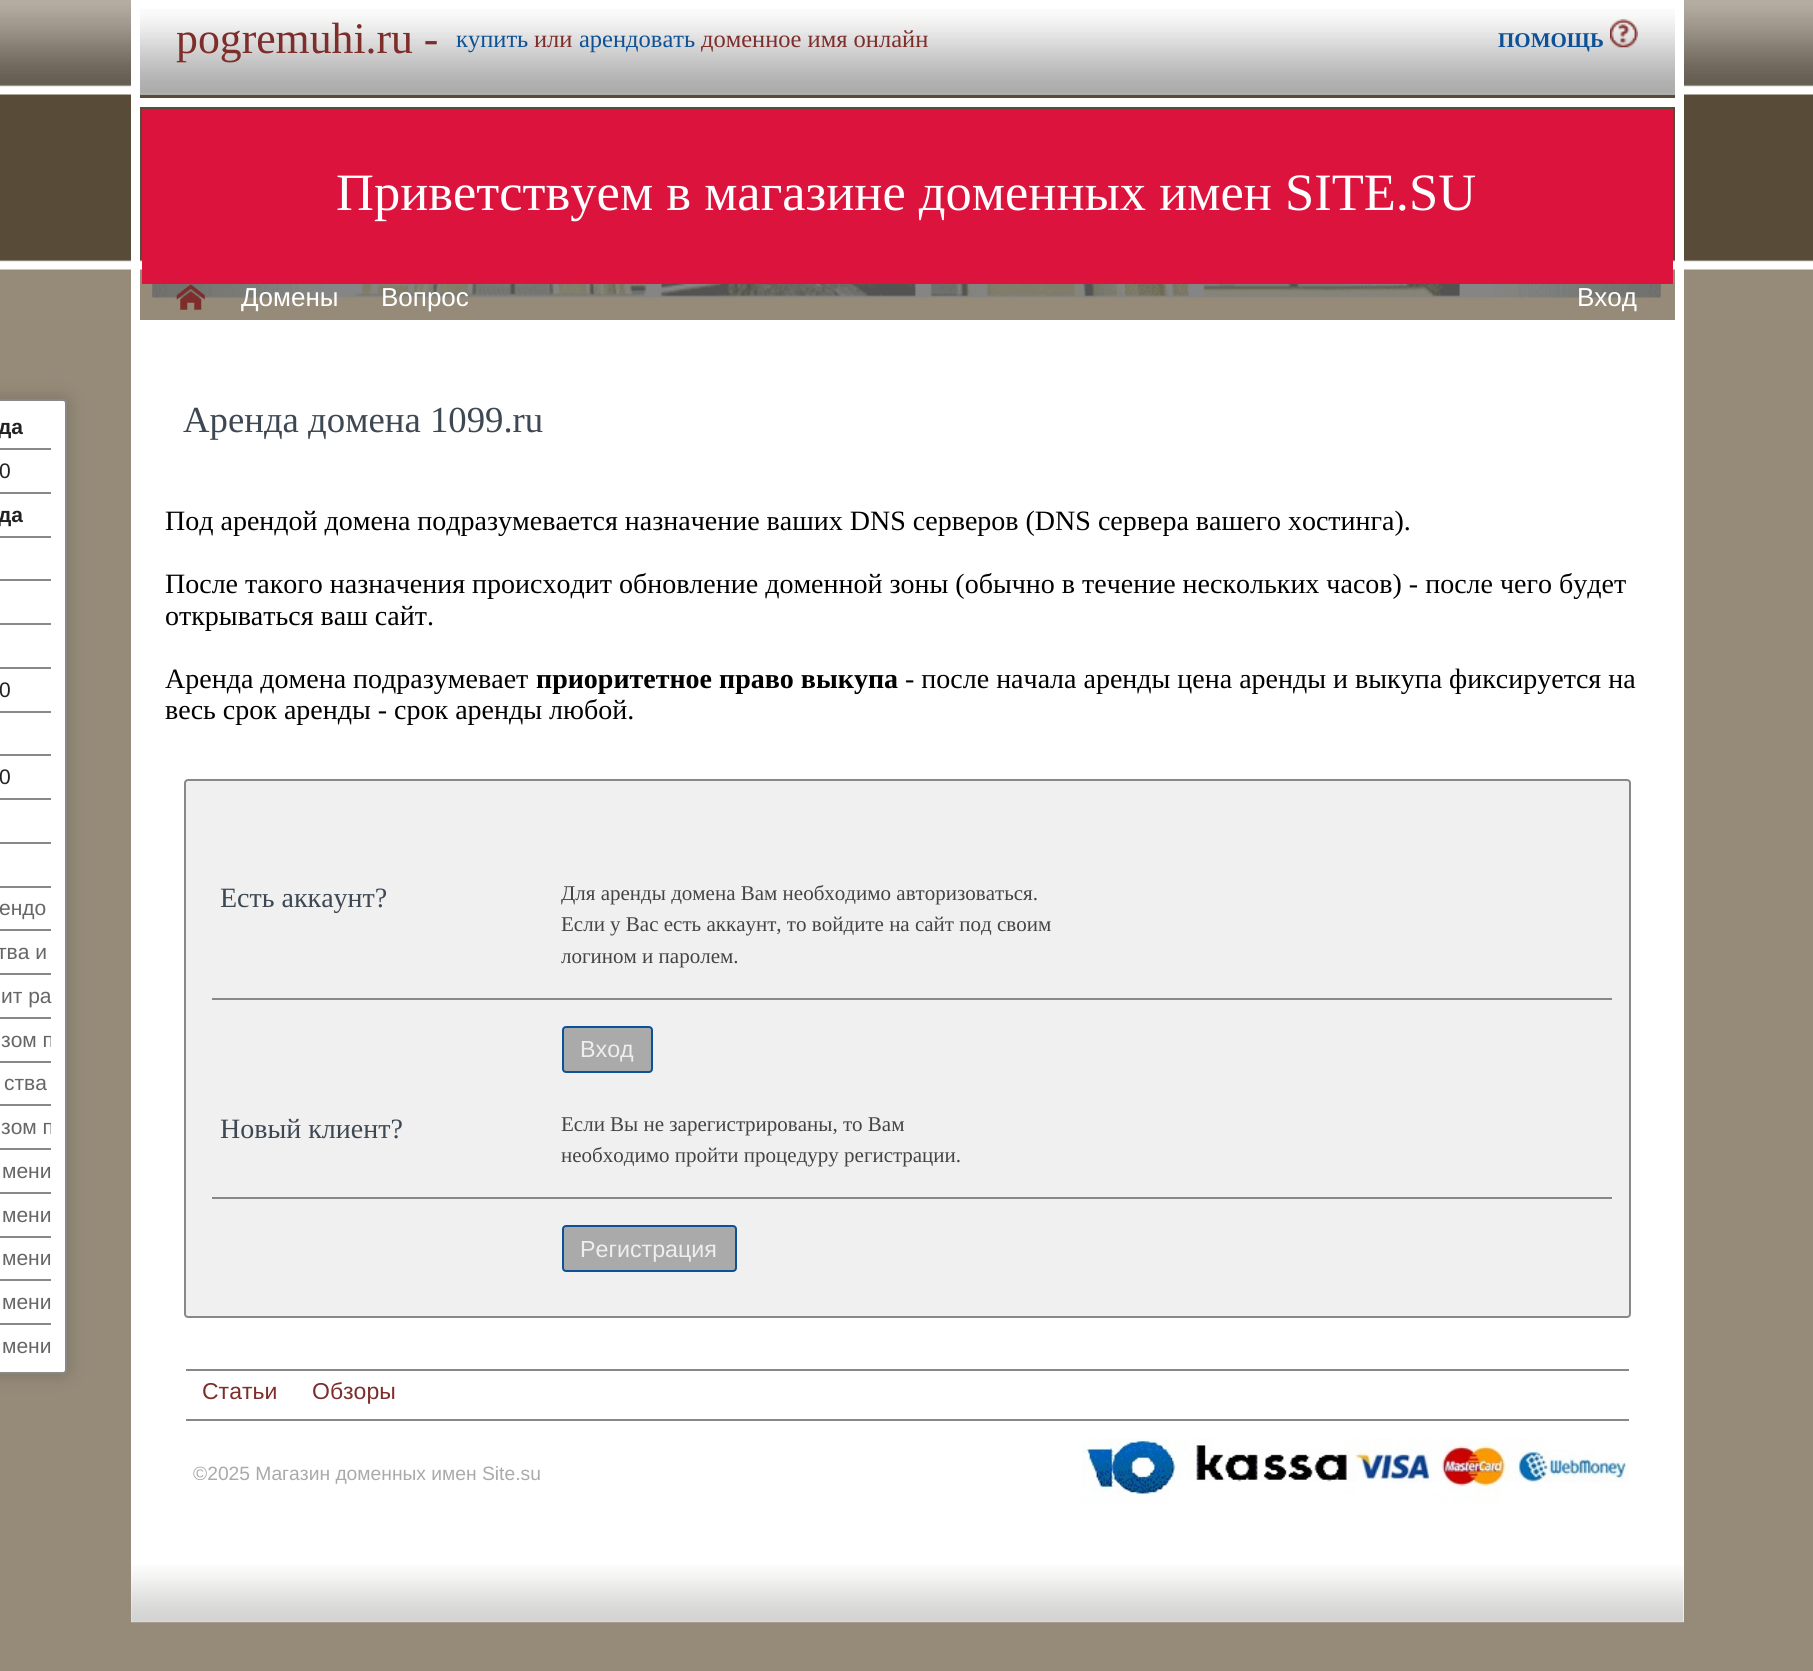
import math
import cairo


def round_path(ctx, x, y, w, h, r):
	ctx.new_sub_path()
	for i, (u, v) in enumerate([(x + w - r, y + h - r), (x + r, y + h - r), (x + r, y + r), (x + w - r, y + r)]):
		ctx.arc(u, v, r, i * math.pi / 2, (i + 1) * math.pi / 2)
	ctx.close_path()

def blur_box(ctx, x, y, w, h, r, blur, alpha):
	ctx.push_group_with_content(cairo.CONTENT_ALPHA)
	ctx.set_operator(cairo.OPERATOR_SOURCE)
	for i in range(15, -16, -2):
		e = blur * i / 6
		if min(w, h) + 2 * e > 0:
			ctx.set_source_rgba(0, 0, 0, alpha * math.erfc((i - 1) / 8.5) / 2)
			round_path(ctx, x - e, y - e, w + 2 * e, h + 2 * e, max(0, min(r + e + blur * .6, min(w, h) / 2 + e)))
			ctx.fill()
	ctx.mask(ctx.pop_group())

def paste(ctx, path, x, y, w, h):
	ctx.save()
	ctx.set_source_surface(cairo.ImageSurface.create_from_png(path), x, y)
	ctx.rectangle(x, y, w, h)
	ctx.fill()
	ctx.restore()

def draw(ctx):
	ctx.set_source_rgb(0.588, 0.545, 0.475)
	ctx.paint()
	paste(ctx, 'media/1.png', 0, 0, 1813, 270)
	paste(ctx, 'media/2.png', 140, 9, 1535, 86)
	ctx.set_source_rgb(1, 1, 1)
	ctx.rectangle(140, 0, 1535, 9)
	ctx.rectangle(1675, 0, 9, 98)
	ctx.rectangle(131, 0, 9, 98)
	ctx.fill()
	ctx.select_font_face('Liberation Serif')
	ctx.set_font_size(43.75)
	ctx.set_source_rgb(0.49, 0.176, 0.165)
	ctx.move_to(176, 53)
	ctx.show_text('pogremuhi.ru -')
	ctx.set_font_size(24.5)
	ctx.set_source_rgb(0.055, 0.318, 0.588)
	ctx.move_to(456, 47)
	ctx.show_text('купить')
	ctx.set_source_rgb(0.49, 0.176, 0.165)
	ctx.move_to(534, 47)
	ctx.show_text('или')
	ctx.set_source_rgb(0.055, 0.318, 0.588)
	ctx.move_to(579, 47)
	ctx.show_text('арендовать')
	ctx.set_source_rgb(0.49, 0.176, 0.165)
	ctx.move_to(701, 47)
	ctx.show_text('доменное имя онлайн')
	ctx.select_font_face('Liberation Serif', cairo.FONT_SLANT_NORMAL, cairo.FONT_WEIGHT_BOLD)
	ctx.set_font_size(21)
	ctx.set_source_rgb(0.055, 0.318, 0.588)
	ctx.move_to(1498, 47)
	ctx.show_text('ПОМОЩЬ')
	paste(ctx, 'media/3.png', 1610, 19, 28, 29)
	paste(ctx, 'media/4.png', 152, 284, 1509, 14)
	ctx.rectangle(135.5, 102.5, 1544, 222)
	ctx.set_source_rgb(1, 1, 1)
	ctx.set_line_width(9)
	ctx.stroke()
	ctx.set_source_rgb(0.863, 0.078, 0.235)
	ctx.rectangle(142, 109, 1531, 175)
	ctx.fill()
	ctx.select_font_face('Liberation Serif')
	ctx.set_font_size(52.5)
	ctx.set_source_rgb(1, 1, 1)
	ctx.move_to(336, 210)
	ctx.show_text('Приветствуем в магазине доменных имен SITE.SU')
	paste(ctx, 'media/5.png', 176, 284, 29, 26)
	ctx.select_font_face('Liberation Sans')
	ctx.set_font_size(26)
	for x, y, s in [
		(241, 306, 'Домены'),
		(381, 306, 'Вопрос'),
		(1577, 306, 'Вход'),
	]:
		ctx.move_to(x, y)
		ctx.show_text(s)
	ctx.rectangle(131, 329, 1553, 1293)
	ctx.fill()
	ctx.set_source_rgb(0, 0, 0)
	blur_box(ctx, -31, 399, 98, 975, 4, 9, 0.2)
	ctx.set_source_rgb(1, 1, 1)
	round_path(ctx, -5, 400, 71, 973, 3)
	ctx.fill_preserve()
	ctx.set_source_rgb(0.533, 0.533, 0.533)
	ctx.set_line_width(2)
	ctx.stroke()
	ctx.rectangle(0, 448, 51, 2)
	ctx.fill()
	ctx.select_font_face('Liberation Sans', cairo.FONT_SLANT_NORMAL, cairo.FONT_WEIGHT_BOLD)
	ctx.set_font_size(21)
	ctx.set_source_rgb(0.133, 0.133, 0.133)
	ctx.move_to(-2, 434)
	ctx.show_text('да')
	ctx.set_source_rgb(0.533, 0.533, 0.533)
	ctx.rectangle(0, 492, 51, 2)
	ctx.fill()
	ctx.select_font_face('Liberation Sans')
	ctx.set_source_rgb(0.133, 0.133, 0.133)
	ctx.move_to(-1, 478)
	ctx.show_text('0')
	ctx.set_source_rgb(0.533, 0.533, 0.533)
	ctx.rectangle(0, 536, 51, 2)
	ctx.fill()
	ctx.select_font_face('Liberation Sans', cairo.FONT_SLANT_NORMAL, cairo.FONT_WEIGHT_BOLD)
	ctx.set_source_rgb(0.133, 0.133, 0.133)
	ctx.move_to(-2, 522)
	ctx.show_text('да')
	ctx.set_source_rgb(0.533, 0.533, 0.533)
	ctx.rectangle(0, 579, 51, 2)
	ctx.rectangle(0, 623, 51, 2)
	ctx.rectangle(0, 667, 51, 2)
	ctx.rectangle(0, 711, 51, 2)
	ctx.fill()
	ctx.select_font_face('Liberation Sans')
	ctx.set_source_rgb(0.133, 0.133, 0.133)
	ctx.move_to(-1, 697)
	ctx.show_text('0')
	ctx.set_source_rgb(0.533, 0.533, 0.533)
	ctx.rectangle(0, 754, 51, 2)
	ctx.fill()
	ctx.rectangle(0, 798, 51, 2)
	ctx.fill()
	ctx.set_source_rgb(0.133, 0.133, 0.133)
	ctx.move_to(-1, 784)
	ctx.show_text('0')
	ctx.set_source_rgb(0.533, 0.533, 0.533)
	ctx.rectangle(0, 842, 51, 2)
	ctx.rectangle(0, 886, 51, 2)
	ctx.rectangle(0, 929, 51, 2)
	ctx.fill()
	ctx.set_source_rgb(0.4, 0.4, 0.4)
	ctx.move_to(-1, 915)
	ctx.show_text('ендо')
	ctx.set_source_rgb(0.533, 0.533, 0.533)
	ctx.rectangle(0, 973, 51, 2)
	ctx.fill()
	ctx.set_source_rgb(0.4, 0.4, 0.4)
	ctx.move_to(-3, 959)
	ctx.show_text('тва и')
	ctx.set_source_rgb(0.533, 0.533, 0.533)
	ctx.rectangle(0, 1017, 51, 2)
	ctx.fill()
	ctx.set_source_rgb(0.4, 0.4, 0.4)
	ctx.move_to(1, 1003)
	ctx.show_text('ит ра')
	ctx.set_source_rgb(0.533, 0.533, 0.533)
	ctx.rectangle(0, 1061, 51, 2)
	ctx.fill()
	ctx.save()
	ctx.rectangle(0, 1019, 51, 42)
	ctx.clip()
	ctx.set_source_rgb(0.4, 0.4, 0.4)
	ctx.move_to(1, 1047)
	ctx.show_text('зом п')
	ctx.restore()
	ctx.rectangle(0, 1104, 51, 2)
	ctx.fill()
	ctx.set_source_rgb(0.4, 0.4, 0.4)
	ctx.move_to(4, 1090)
	ctx.show_text('ства')
	ctx.set_source_rgb(0.533, 0.533, 0.533)
	ctx.rectangle(0, 1148, 51, 2)
	ctx.fill()
	ctx.save()
	ctx.rectangle(0, 1106, 51, 42)
	ctx.clip()
	ctx.set_source_rgb(0.4, 0.4, 0.4)
	ctx.move_to(1, 1134)
	ctx.show_text('зом п')
	ctx.restore()
	ctx.rectangle(0, 1192, 51, 2)
	ctx.fill()
	ctx.set_source_rgb(0.4, 0.4, 0.4)
	ctx.move_to(2, 1178)
	ctx.show_text('мени')
	ctx.set_source_rgb(0.533, 0.533, 0.533)
	ctx.rectangle(0, 1236, 51, 2)
	ctx.fill()
	ctx.set_source_rgb(0.4, 0.4, 0.4)
	ctx.move_to(2, 1222)
	ctx.show_text('мени')
	ctx.set_source_rgb(0.533, 0.533, 0.533)
	ctx.rectangle(0, 1279, 51, 2)
	ctx.fill()
	ctx.set_source_rgb(0.4, 0.4, 0.4)
	ctx.move_to(2, 1265)
	ctx.show_text('мени')
	ctx.set_source_rgb(0.533, 0.533, 0.533)
	ctx.rectangle(0, 1323, 51, 2)
	ctx.fill()
	ctx.set_source_rgb(0.4, 0.4, 0.4)
	ctx.move_to(2, 1309)
	ctx.show_text('мени')
	ctx.move_to(2, 1353)
	ctx.show_text('мени')
	ctx.select_font_face('Liberation Serif')
	ctx.set_font_size(36.75)
	ctx.set_source_rgb(0.243, 0.282, 0.325)
	ctx.move_to(183, 432)
	ctx.show_text('Аренда домена 1099.ru')
	ctx.set_font_size(28)
	ctx.set_source_rgb(0, 0, 0)
	for x, y, s in [
		(165, 530, 'Под арендой домена подразумевается назначение ваших DNS серверов (DNS сервера вашего хостинга).'),
		(165, 593, 'После такого назначения происходит обновление доменной зоны (обычно в течение нескольких часов) - после чего будет'),
		(165, 625, 'открываться ваш сайт.'),
		(165, 688, 'Аренда домена подразумевает'),
	]:
		ctx.move_to(x, y)
		ctx.show_text(s)
	ctx.select_font_face('Liberation Serif', cairo.FONT_SLANT_NORMAL, cairo.FONT_WEIGHT_BOLD)
	ctx.move_to(536, 688)
	ctx.show_text('приоритетное право выкупа')
	ctx.select_font_face('Liberation Serif')
	ctx.move_to(905, 688)
	ctx.show_text('- после начала аренды цена аренды и выкупа фиксируется на')
	ctx.move_to(165, 719)
	ctx.show_text('весь срок аренды - срок аренды любой.')
	ctx.set_source_rgb(0.941, 0.941, 0.941)
	round_path(ctx, 185, 780, 1445, 537, 3)
	ctx.fill_preserve()
	ctx.set_source_rgb(0.533, 0.533, 0.533)
	ctx.stroke()
	ctx.set_source_rgb(0.243, 0.282, 0.325)
	ctx.move_to(220, 907)
	ctx.show_text('Есть аккаунт?')
	ctx.set_font_size(21)
	ctx.set_source_rgb(0.267, 0.267, 0.267)
	for x, y, s in [
		(561, 900, 'Для аренды домена Вам необходимо авторизоваться.'),
		(561, 931, 'Если у Вас есть аккаунт, то войдите на сайт под своим'),
		(561, 963, 'логином и паролем.'),
	]:
		ctx.move_to(x, y)
		ctx.show_text(s)
	ctx.set_source_rgb(0.533, 0.533, 0.533)
	ctx.rectangle(212, 998, 1400, 2)
	ctx.fill()
	ctx.set_source_rgb(0.667, 0.667, 0.667)
	round_path(ctx, 563, 1027, 89, 45, 3)
	ctx.fill_preserve()
	ctx.set_source_rgb(0.055, 0.318, 0.588)
	ctx.stroke()
	ctx.select_font_face('Liberation Sans')
	ctx.set_font_size(23.25)
	ctx.set_source_rgb(0.933, 0.933, 0.933)
	ctx.move_to(580, 1057)
	ctx.show_text('Вход')
	ctx.select_font_face('Liberation Serif')
	ctx.set_font_size(28)
	ctx.set_source_rgb(0.243, 0.282, 0.325)
	ctx.move_to(220, 1138)
	ctx.show_text('Новый клиент?')
	ctx.set_font_size(21)
	ctx.set_source_rgb(0.267, 0.267, 0.267)
	ctx.move_to(561, 1131)
	ctx.show_text('Если Вы не зарегистрированы, то Вам')
	ctx.move_to(561, 1162)
	ctx.show_text('необходимо пройти процедуру регистрации.')
	ctx.set_source_rgb(0.533, 0.533, 0.533)
	ctx.rectangle(212, 1197, 1400, 2)
	ctx.fill()
	ctx.set_source_rgb(0.667, 0.667, 0.667)
	round_path(ctx, 563, 1226, 173, 45, 3)
	ctx.fill_preserve()
	ctx.set_source_rgb(0.055, 0.318, 0.588)
	ctx.stroke()
	ctx.select_font_face('Liberation Sans')
	ctx.set_font_size(23.25)
	ctx.set_source_rgb(0.933, 0.933, 0.933)
	ctx.move_to(580, 1257)
	ctx.show_text('Регистрация')
	ctx.set_source_rgb(0.533, 0.533, 0.533)
	ctx.rectangle(186, 1369, 1443, 2)
	ctx.fill()
	ctx.set_font_size(23)
	ctx.set_source_rgb(0.49, 0.176, 0.165)
	ctx.move_to(202, 1399)
	ctx.show_text('Статьи')
	ctx.move_to(312, 1399)
	ctx.show_text('Обзоры')
	ctx.set_source_rgb(0.533, 0.533, 0.533)
	ctx.rectangle(186, 1419, 1443, 2)
	ctx.fill()
	ctx.set_font_size(19.25)
	ctx.set_source_rgb(0.667, 0.667, 0.667)
	ctx.move_to(193, 1480)
	ctx.show_text('©2025 Магазин доменных имен Site.su')
	paste(ctx, 'media/6.png', 1081, 1438, 548, 66)
	paste(ctx, 'media/7.png', 131, 1565, 1553, 58)


surface = cairo.ImageSurface(cairo.FORMAT_RGB24, 1813, 1671)
ctx = cairo.Context(surface)
options = cairo.FontOptions()
options.set_hint_metrics(cairo.HINT_METRICS_OFF)
options.set_hint_style(cairo.HINT_STYLE_NONE)
ctx.set_font_options(options)
ctx.set_miter_limit(4)
draw(ctx)
surface.write_to_png('image.png')
